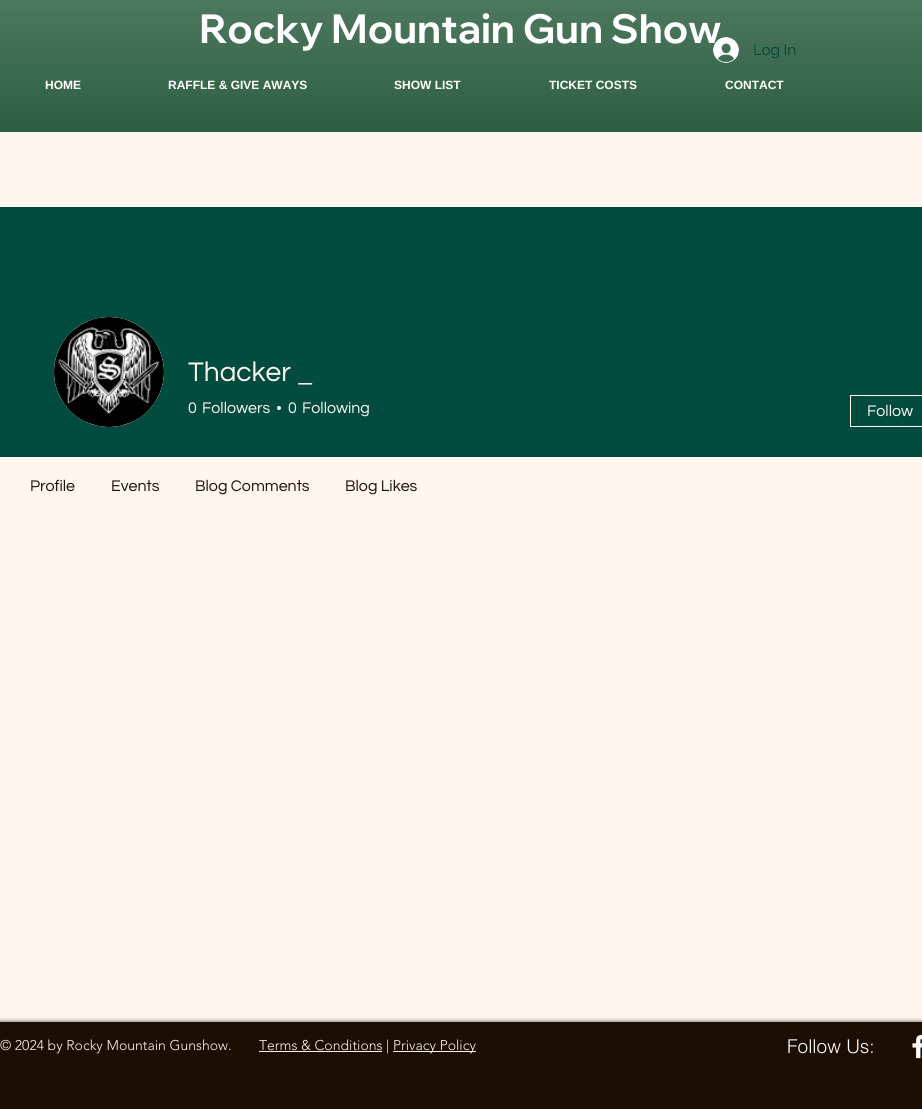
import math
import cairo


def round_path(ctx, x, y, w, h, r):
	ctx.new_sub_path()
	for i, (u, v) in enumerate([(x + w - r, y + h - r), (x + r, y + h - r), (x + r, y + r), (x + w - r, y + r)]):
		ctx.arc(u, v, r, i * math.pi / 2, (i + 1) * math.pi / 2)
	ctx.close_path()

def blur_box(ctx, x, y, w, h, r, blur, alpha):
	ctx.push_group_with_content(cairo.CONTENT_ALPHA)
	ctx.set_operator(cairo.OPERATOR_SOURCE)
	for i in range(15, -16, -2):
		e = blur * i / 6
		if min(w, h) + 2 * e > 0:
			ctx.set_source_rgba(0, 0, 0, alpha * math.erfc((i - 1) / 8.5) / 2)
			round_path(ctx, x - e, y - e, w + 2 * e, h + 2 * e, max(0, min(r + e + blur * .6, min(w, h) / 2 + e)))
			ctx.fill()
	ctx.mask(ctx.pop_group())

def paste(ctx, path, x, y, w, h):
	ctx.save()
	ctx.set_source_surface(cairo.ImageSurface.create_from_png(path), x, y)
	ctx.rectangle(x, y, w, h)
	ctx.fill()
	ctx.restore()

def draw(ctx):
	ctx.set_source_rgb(1, 0.965, 0.937)
	ctx.paint()
	ctx.set_source_rgb(0.059, 0.282, 0.149)
	ctx.rectangle(0, 0, 922, 132)
	ctx.fill()
	paste(ctx, 'media/1.png', 0, 0, 922, 132)
	ctx.select_font_face('Wix Madefor Display', cairo.FONT_SLANT_NORMAL, cairo.FONT_WEIGHT_BOLD)
	ctx.set_font_size(40)
	ctx.set_source_rgb(1, 1, 1)
	ctx.move_to(199, 43)
	ctx.show_text('Rocky Mountain Gun Show')
	ctx.select_font_face('Liberation Sans', cairo.FONT_SLANT_NORMAL, cairo.FONT_WEIGHT_BOLD)
	ctx.set_font_size(12)
	for x, y, s in [
		(45, 89, 'HOME'),
		(168, 89, 'RAFFLE & GIVE AWAYS'),
		(394, 89, 'SHOW LIST'),
		(549, 89, 'TICKET COSTS'),
		(725, 89, 'CONTACT'),
	]:
		ctx.move_to(x, y)
		ctx.show_text(s)
	paste(ctx, 'media/2.png', 713, 37, 26, 26)
	ctx.select_font_face('Questrial')
	ctx.set_font_size(16)
	ctx.set_source_rgb(0.004, 0.294, 0.247)
	ctx.move_to(753, 55)
	ctx.show_text('Log In')
	ctx.rectangle(0, 207, 922, 250)
	ctx.fill()
	ctx.set_source_rgb(0.847, 0.847, 0.847)
	ctx.arc(109, 372, 55, 0, 2 * math.pi)
	ctx.fill()
	paste(ctx, 'media/3.png', 54, 317, 110, 110)
	ctx.set_font_size(28)
	ctx.set_source_rgb(1, 0.965, 0.937)
	ctx.move_to(188, 381)
	ctx.show_text('Thacker _')
	ctx.set_font_size(16)
	ctx.move_to(188, 413)
	ctx.show_text('0')
	ctx.move_to(202, 413)
	ctx.show_text('Followers')
	ctx.new_path()
	ctx.arc(279, 408, 2, 0, 2 * math.pi)
	ctx.fill()
	ctx.move_to(288, 413)
	ctx.show_text('0')
	ctx.move_to(302, 413)
	ctx.show_text('Following')
	ctx.rectangle(850.5, 395.5, 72, 31)
	ctx.set_line_width(1)
	ctx.stroke()
	ctx.move_to(867, 416)
	ctx.show_text('Follow')
	ctx.set_source_rgb(0.114, 0.055, 0.012)
	for x, y, s in [
		(30, 491, 'Profile'),
		(111, 491, 'Events'),
		(195, 491, 'Blog Comments'),
		(345, 491, 'Blog Likes'),
	]:
		ctx.move_to(x, y)
		ctx.show_text(s)
	ctx.set_source_rgb(0, 0, 0)
	blur_box(ctx, 0, 1022, 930, 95, 0, 2.5, 0.7)
	ctx.set_source_rgb(0.114, 0.055, 0.012)
	ctx.rectangle(0, 1022, 922, 87)
	ctx.fill()
	ctx.select_font_face('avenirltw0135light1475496 Light')
	ctx.set_font_size(14)
	ctx.set_source_rgb(1, 0.965, 0.937)
	ctx.move_to(0, 1050)
	ctx.show_text('© 2024 by Rocky Mountain Gunshow.')
	ctx.rectangle(259, 1051, 123, 1)
	ctx.fill()
	ctx.move_to(259, 1050)
	ctx.show_text('Terms & Conditions |')
	ctx.rectangle(393, 1051, 83, 1)
	ctx.fill()
	ctx.move_to(393, 1050)
	ctx.show_text('Privacy Policy')
	ctx.select_font_face('helvetica Light')
	ctx.set_font_size(19)
	ctx.set_source_rgb(1, 1, 1)
	ctx.move_to(787, 1053)
	ctx.show_text('Follow Us:')
	paste(ctx, 'media/4.png', 912, 1034, 10, 25)


surface = cairo.ImageSurface(cairo.FORMAT_RGB24, 922, 1109)
ctx = cairo.Context(surface)
options = cairo.FontOptions()
options.set_hint_metrics(cairo.HINT_METRICS_OFF)
options.set_hint_style(cairo.HINT_STYLE_NONE)
ctx.set_font_options(options)
ctx.set_miter_limit(4)
draw(ctx)
surface.write_to_png('image.png')
